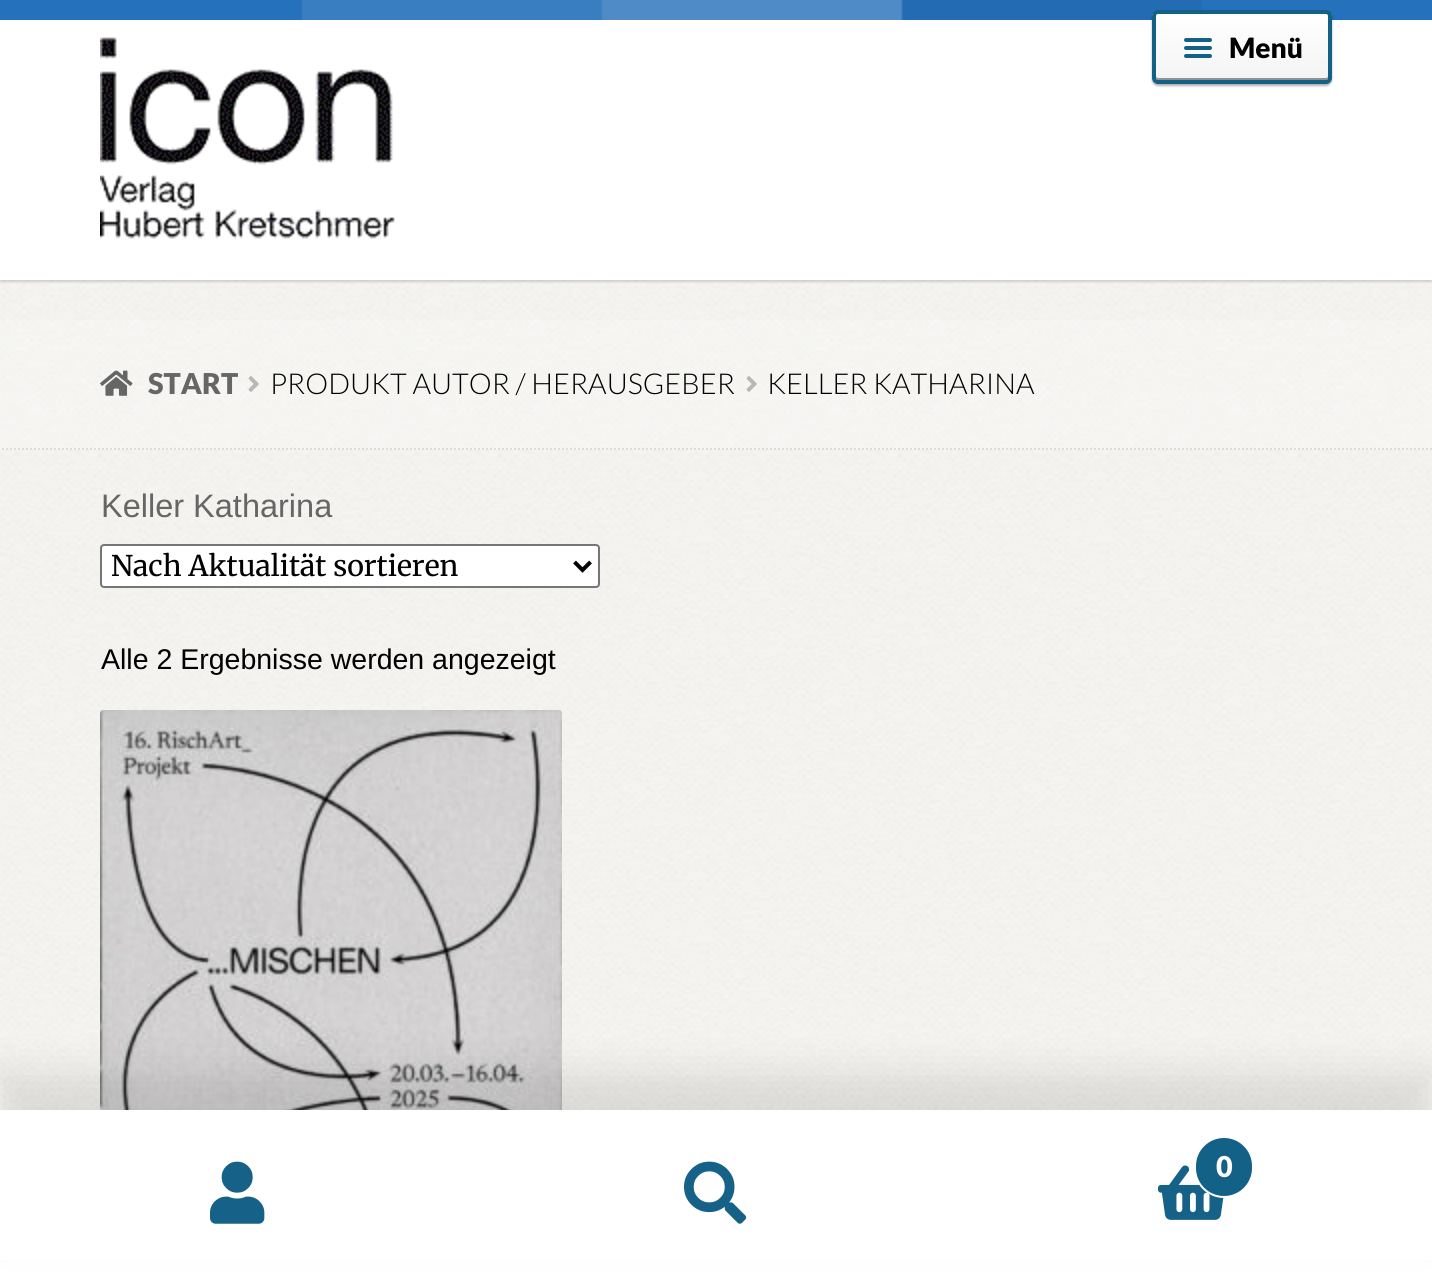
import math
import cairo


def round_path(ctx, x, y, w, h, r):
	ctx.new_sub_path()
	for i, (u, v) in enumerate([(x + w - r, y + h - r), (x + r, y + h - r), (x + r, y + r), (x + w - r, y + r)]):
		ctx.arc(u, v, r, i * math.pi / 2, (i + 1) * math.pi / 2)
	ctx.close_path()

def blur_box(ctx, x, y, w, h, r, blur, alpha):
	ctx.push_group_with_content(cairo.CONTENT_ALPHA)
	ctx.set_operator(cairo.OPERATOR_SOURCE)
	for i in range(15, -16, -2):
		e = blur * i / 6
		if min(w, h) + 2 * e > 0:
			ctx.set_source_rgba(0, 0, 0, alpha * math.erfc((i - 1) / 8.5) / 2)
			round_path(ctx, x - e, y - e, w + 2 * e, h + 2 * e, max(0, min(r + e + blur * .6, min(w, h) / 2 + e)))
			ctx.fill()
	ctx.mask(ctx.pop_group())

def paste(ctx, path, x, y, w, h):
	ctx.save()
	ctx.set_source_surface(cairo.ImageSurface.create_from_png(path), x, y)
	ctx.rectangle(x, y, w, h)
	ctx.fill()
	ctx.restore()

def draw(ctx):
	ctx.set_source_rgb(1, 1, 1)
	ctx.paint()
	paste(ctx, 'media/1.png', 0, 280, 1432, 830)
	ctx.set_source_rgb(0, 0, 0)
	blur_box(ctx, 0, 2, 1432, 280, 0, 1, 0.15)
	ctx.set_source_rgb(1, 1, 1)
	ctx.rectangle(0, 20, 1432, 260)
	ctx.fill()
	ctx.set_source_rgb(0.145, 0.443, 0.737)
	ctx.rectangle(0, 0, 1432, 20)
	ctx.fill()
	paste(ctx, 'media/2.png', 301, 0, 901, 20)
	paste(ctx, 'media/3.png', 100, 37, 295, 202)
	ctx.set_source_rgb(0, 0, 0)
	blur_box(ctx, 1152, 12, 180, 74, 6, 1, 0.3)
	ctx.save()
	round_path(ctx, 1152, 10, 180, 74, 6)
	ctx.clip()
	gradient = cairo.LinearGradient(1242, 14, 1242, 80)
	gradient.add_color_stop_rgba(0, 1, 1, 1, 1)
	gradient.add_color_stop_rgba(1, 0.957, 0.957, 0.957, 1)
	ctx.set_source(gradient)
	ctx.rectangle(1152, 14, 180, 66)
	ctx.fill()
	ctx.restore()
	ctx.set_source_rgb(0.573, 0.573, 0.573)
	ctx.new_path()
	ctx.move_to(1156, 76)
	ctx.curve_to(1156, 78, 1156, 80, 1158, 80)
	ctx.line_to(1326, 80)
	ctx.curve_to(1328, 80, 1328, 78, 1328, 76)
	ctx.curve_to(1328, 77, 1327, 78, 1326, 78)
	ctx.line_to(1158, 78)
	ctx.curve_to(1157, 78, 1156, 77, 1156, 76)
	ctx.close_path()
	ctx.fill()
	round_path(ctx, 1154, 12, 176, 70, 4)
	ctx.set_source_rgb(0.082, 0.38, 0.529)
	ctx.set_line_width(4)
	ctx.stroke()
	round_path(ctx, 1184, 38, 28, 4, 2)
	ctx.fill()
	round_path(ctx, 1184, 46, 28, 4, 2)
	ctx.fill()
	ctx.select_font_face('Lato Black')
	ctx.set_font_size(28)
	ctx.set_source_rgb(0, 0, 0)
	ctx.move_to(1229, 58)
	ctx.show_text('Menü')
	ctx.set_source_rgb(0.082, 0.38, 0.529)
	round_path(ctx, 1184, 54, 28, 4, 2)
	ctx.fill()
	ctx.set_source_rgba(1, 1, 1, 0.2)
	ctx.rectangle(0, 320, 1432, 130)
	ctx.fill()
	ctx.new_path()
	ctx.move_to(-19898, 449)
	ctx.line_to(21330, 449)
	ctx.set_source_rgba(0, 0, 0, 0.1)
	ctx.set_line_width(2)
	ctx.set_dash([2, 2])
	ctx.stroke()
	paste(ctx, 'media/4.png', 100, 370, 33, 26)
	ctx.set_font_size(28.75)
	ctx.set_source_rgb(0.4, 0.4, 0.4)
	ctx.move_to(148, 394)
	ctx.show_text('START')
	paste(ctx, 'media/5.png', 248, 376, 11, 16)
	ctx.select_font_face('Lato Light')
	ctx.set_source_rgb(0, 0, 0)
	ctx.move_to(270, 394)
	ctx.show_text('PRODUKT AUTOR / HERAUSGEBER')
	paste(ctx, 'media/6.png', 746, 376, 11, 16)
	ctx.move_to(767, 394)
	ctx.show_text('KELLER KATHARINA')
	ctx.select_font_face('Liberation Sans')
	ctx.set_font_size(32.5)
	ctx.set_source_rgb(0.4, 0.4, 0.4)
	ctx.move_to(101, 517)
	ctx.show_text('Keller Katharina')
	ctx.set_source_rgb(1, 1, 1)
	round_path(ctx, 101, 545, 498, 42, 3)
	ctx.fill_preserve()
	ctx.set_source_rgb(0.463, 0.463, 0.463)
	ctx.set_dash([])
	ctx.stroke()
	ctx.new_path()
	ctx.move_to(574.5, 562)
	ctx.line_to(582.5, 570)
	ctx.line_to(590.5, 562)
	ctx.set_source_rgb(0, 0, 0)
	ctx.set_line_width(4)
	ctx.stroke()
	ctx.select_font_face('Merriweather')
	ctx.set_font_size(28.5)
	ctx.move_to(111, 576)
	ctx.show_text('Nach Aktualität sortieren')
	ctx.select_font_face('Liberation Sans')
	ctx.move_to(101, 669)
	ctx.show_text('Alle 2 Ergebnisse werden angezeigt')
	paste(ctx, 'media/7.png', 100, 710, 462, 400)
	ctx.set_source_rgb(0, 0, 0)
	blur_box(ctx, 0, 1072, 1432, 164, 0, 19, 0.1)
	ctx.set_source_rgb(1, 1, 1)
	ctx.rectangle(0, 1110, 1432, 150)
	ctx.fill()
	paste(ctx, 'media/8.png', 210, 1161, 55, 63)
	paste(ctx, 'media/9.png', 684, 1161, 63, 63)
	paste(ctx, 'media/10.png', 1158, 1165, 66, 55)
	ctx.set_source_rgb(0.082, 0.38, 0.529)
	round_path(ctx, 1195, 1137, 58, 60, 29)
	ctx.fill_preserve()
	ctx.set_source_rgb(1, 1, 1)
	ctx.set_line_width(2)
	ctx.stroke()
	ctx.select_font_face('Lato Black')
	ctx.set_font_size(28.75)
	ctx.move_to(1216, 1177)
	ctx.show_text('0')


surface = cairo.ImageSurface(cairo.FORMAT_RGB24, 1432, 1273)
ctx = cairo.Context(surface)
options = cairo.FontOptions()
options.set_hint_metrics(cairo.HINT_METRICS_OFF)
options.set_hint_style(cairo.HINT_STYLE_NONE)
ctx.set_font_options(options)
ctx.set_miter_limit(4)
draw(ctx)
surface.write_to_png('image.png')
